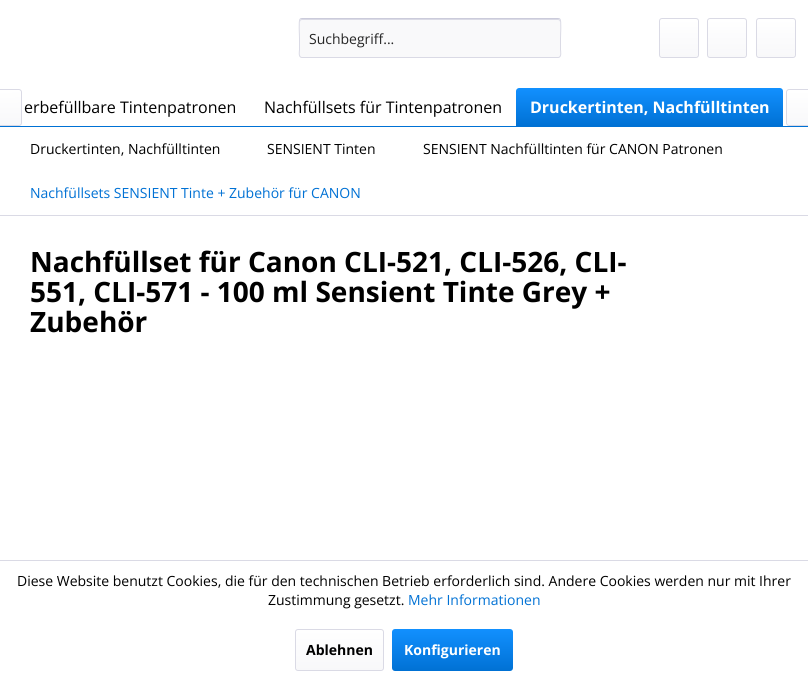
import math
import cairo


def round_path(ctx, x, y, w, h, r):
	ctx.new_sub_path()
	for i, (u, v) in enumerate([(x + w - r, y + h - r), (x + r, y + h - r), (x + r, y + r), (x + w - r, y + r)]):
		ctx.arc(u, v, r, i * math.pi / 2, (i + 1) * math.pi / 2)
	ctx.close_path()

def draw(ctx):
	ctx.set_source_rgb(1, 1, 1)
	ctx.paint()
	ctx.set_source_rgb(0.973, 0.973, 0.98)
	round_path(ctx, 299, 18, 262, 40, 3)
	ctx.fill()
	ctx.set_source_rgb(0.855, 0.855, 0.898)
	ctx.new_path()
	ctx.move_to(302, 20)
	ctx.line_to(558, 20)
	ctx.curve_to(559, 20, 560, 21, 560, 22)
	ctx.line_to(560, 21)
	ctx.curve_to(560, 20, 559, 19, 558, 19)
	ctx.line_to(302, 19)
	ctx.curve_to(301, 19, 300, 20, 300, 21)
	ctx.line_to(300, 22)
	ctx.curve_to(300, 21, 301, 20, 302, 20)
	ctx.close_path()
	ctx.fill()
	ctx.new_path()
	ctx.move_to(300, 19)
	ctx.line_to(302, 18.5)
	ctx.line_to(558, 18.5)
	ctx.line_to(560, 19)
	ctx.set_source_rgb(0.796, 0.796, 0.859)
	ctx.set_line_width(1)
	ctx.stroke()
	ctx.new_path()
	ctx.move_to(560, 19)
	ctx.curve_to(561.5, 21, 560.5, 35, 560.5, 38)
	ctx.line_to(560.5, 49.5)
	ctx.curve_to(560.5, 51, 562, 57.5, 558, 57.5)
	ctx.line_to(302, 57.5)
	ctx.curve_to(298, 57.5, 299.5, 51, 299.5, 49.5)
	ctx.line_to(299.5, 38)
	ctx.curve_to(299.5, 35, 298.5, 21, 300, 19)
	ctx.set_source_rgb(0.855, 0.855, 0.898)
	ctx.stroke()
	ctx.select_font_face('Open Sans')
	ctx.set_font_size(14)
	ctx.set_source_rgb(0.149, 0.149, 0.149)
	ctx.move_to(309, 44)
	ctx.show_text('Suchbegriff...')
	gradient = cairo.LinearGradient(679, 19, 679, 57)
	gradient.add_color_stop_rgba(0, 1, 1, 1, 1)
	gradient.add_color_stop_rgba(1, 0.973, 0.973, 0.98, 1)
	ctx.set_source(gradient)
	round_path(ctx, 660, 19, 38, 38, 2)
	ctx.fill()
	round_path(ctx, 659.5, 18.5, 39, 39, 2.5)
	ctx.set_source_rgb(0.855, 0.855, 0.898)
	ctx.stroke()
	gradient = cairo.LinearGradient(727, 19, 727, 57)
	gradient.add_color_stop_rgba(0, 1, 1, 1, 1)
	gradient.add_color_stop_rgba(1, 0.973, 0.973, 0.98, 1)
	ctx.set_source(gradient)
	round_path(ctx, 708, 19, 38, 38, 2)
	ctx.fill()
	round_path(ctx, 707.5, 18.5, 39, 39, 2.5)
	ctx.set_source_rgb(0.855, 0.855, 0.898)
	ctx.stroke()
	gradient = cairo.LinearGradient(776, 19, 776, 57)
	gradient.add_color_stop_rgba(0, 1, 1, 1, 1)
	gradient.add_color_stop_rgba(1, 0.973, 0.973, 0.98, 1)
	ctx.set_source(gradient)
	round_path(ctx, 757, 19, 38, 38, 2)
	ctx.fill()
	round_path(ctx, 756.5, 18.5, 39, 39, 2.5)
	ctx.set_source_rgb(0.855, 0.855, 0.898)
	ctx.stroke()
	ctx.set_source_rgb(0, 0.443, 0.831)
	ctx.rectangle(0, 126, 808, 1)
	ctx.fill()
	gradient = cairo.LinearGradient(10, 90, 11, 125)
	gradient.add_color_stop_rgba(0, 1, 1, 1, 1)
	gradient.add_color_stop_rgba(1, 0.973, 0.973, 0.98, 1)
	ctx.set_source(gradient)
	ctx.new_path()
	ctx.move_to(0, 90)
	ctx.line_to(19, 90)
	ctx.curve_to(20, 90, 21, 91, 21, 92)
	ctx.line_to(21, 123)
	ctx.curve_to(21, 124, 20, 125, 19, 125)
	ctx.line_to(0, 125)
	ctx.close_path()
	ctx.fill()
	ctx.set_source_rgb(0.855, 0.855, 0.898)
	ctx.set_fill_rule(cairo.FILL_RULE_EVEN_ODD)
	ctx.new_path()
	ctx.move_to(0, 89)
	ctx.line_to(19, 89)
	ctx.curve_to(20.5, 89, 22, 90.5, 22, 92)
	ctx.line_to(22, 123)
	ctx.curve_to(22, 124.5, 20.5, 126, 19, 126)
	ctx.line_to(0, 126)
	ctx.close_path()
	ctx.move_to(0, 90)
	ctx.line_to(19, 90)
	ctx.curve_to(20, 90, 21, 91, 21, 92)
	ctx.line_to(21, 123)
	ctx.curve_to(21, 124, 20, 125, 19, 125)
	ctx.line_to(0, 125)
	ctx.close_path()
	ctx.fill()
	ctx.set_font_size(16)
	ctx.set_source_rgb(0, 0, 0)
	ctx.move_to(24, 113)
	ctx.show_text('erbefüllbare Tintenpatronen')
	ctx.move_to(264, 113)
	ctx.show_text('Nachfüllsets für Tintenpatronen')
	gradient = cairo.LinearGradient(650, 88, 650, 126)
	gradient.add_color_stop_rgba(0, 0.071, 0.565, 1, 1)
	gradient.add_color_stop_rgba(1, 0, 0.443, 0.831, 1)
	ctx.set_source(gradient)
	ctx.new_path()
	ctx.move_to(519, 88)
	ctx.line_to(780, 88)
	ctx.curve_to(781.5, 88, 783, 89.5, 783, 91)
	ctx.line_to(783, 126)
	ctx.line_to(516, 126)
	ctx.line_to(516, 91)
	ctx.curve_to(516, 89.5, 517.5, 88, 519, 88)
	ctx.close_path()
	ctx.fill()
	ctx.select_font_face('Open Sans', cairo.FONT_SLANT_NORMAL, cairo.FONT_WEIGHT_BOLD)
	ctx.set_source_rgb(1, 1, 1)
	ctx.move_to(530, 113)
	ctx.show_text('Druckertinten, Nachfülltinten')
	gradient = cairo.LinearGradient(798, 90, 798, 125)
	gradient.add_color_stop_rgba(0, 1, 1, 1, 1)
	gradient.add_color_stop_rgba(1, 0.973, 0.973, 0.98, 1)
	ctx.set_source(gradient)
	ctx.new_path()
	ctx.move_to(789, 90)
	ctx.line_to(808, 90)
	ctx.line_to(808, 125)
	ctx.line_to(789, 125)
	ctx.curve_to(788, 125, 787, 124, 787, 123)
	ctx.line_to(787, 92)
	ctx.curve_to(787, 91, 788, 90, 789, 90)
	ctx.close_path()
	ctx.fill()
	ctx.set_source_rgb(0.855, 0.855, 0.898)
	ctx.new_path()
	ctx.move_to(789, 89)
	ctx.line_to(808, 89)
	ctx.line_to(808, 126)
	ctx.line_to(789, 126)
	ctx.curve_to(787.5, 126, 786, 124.5, 786, 123)
	ctx.line_to(786, 92)
	ctx.curve_to(786, 90.5, 787.5, 89, 789, 89)
	ctx.close_path()
	ctx.move_to(789, 90)
	ctx.line_to(808, 90)
	ctx.line_to(808, 125)
	ctx.line_to(789, 125)
	ctx.curve_to(788, 125, 787, 124, 787, 123)
	ctx.line_to(787, 92)
	ctx.curve_to(787, 91, 788, 90, 789, 90)
	ctx.close_path()
	ctx.fill()
	ctx.rectangle(0, 215, 808, 1)
	ctx.fill()
	ctx.select_font_face('Open Sans')
	ctx.set_font_size(14)
	ctx.set_source_rgb(0, 0, 0)
	for x, y, s in [
		(30, 154, 'Druckertinten, Nachfülltinten'),
		(267, 154, 'SENSIENT Tinten'),
		(423, 154, 'SENSIENT Nachfülltinten für CANON Patronen'),
	]:
		ctx.move_to(x, y)
		ctx.show_text(s)
	ctx.set_source_rgb(0, 0.443, 0.831)
	ctx.move_to(30, 198)
	ctx.show_text('Nachfüllsets SENSIENT Tinte + Zubehör für CANON')
	ctx.select_font_face('Open Sans', cairo.FONT_SLANT_NORMAL, cairo.FONT_WEIGHT_BOLD)
	ctx.set_font_size(28)
	ctx.set_source_rgb(0, 0, 0)
	for x, y, s in [
		(30, 272, 'Nachfüllset für Canon CLI-521, CLI-526, CLI-'),
		(30, 302, '551, CLI-571 - 100 ml Sensient Tinte Grey +'),
		(30, 332, 'Zubehör'),
	]:
		ctx.move_to(x, y)
		ctx.show_text(s)
	ctx.set_source_rgb(0.855, 0.855, 0.898)
	ctx.rectangle(0, 560, 808, 1)
	ctx.fill()
	ctx.select_font_face('Open Sans')
	ctx.set_font_size(14)
	ctx.set_source_rgb(0, 0, 0)
	ctx.move_to(17, 586)
	ctx.show_text('Diese Website benutzt Cookies, die für den technischen Betrieb erforderlich sind. Andere Cookies werden nur mit Ihrer')
	ctx.move_to(268, 605)
	ctx.show_text('Zustimmung gesetzt.')
	ctx.set_source_rgb(0, 0.443, 0.831)
	ctx.move_to(408, 605)
	ctx.show_text('Mehr Informationen')
	gradient = cairo.LinearGradient(340, 630, 340, 670)
	gradient.add_color_stop_rgba(0, 1, 1, 1, 1)
	gradient.add_color_stop_rgba(1, 0.973, 0.973, 0.98, 1)
	ctx.set_source(gradient)
	round_path(ctx, 296, 630, 87, 40, 2)
	ctx.fill()
	round_path(ctx, 295.5, 629.5, 88, 41, 2.5)
	ctx.set_source_rgb(0.855, 0.855, 0.898)
	ctx.stroke()
	ctx.select_font_face('Open Sans', cairo.FONT_SLANT_NORMAL, cairo.FONT_WEIGHT_BOLD)
	ctx.set_source_rgb(0, 0, 0)
	ctx.move_to(306, 655)
	ctx.show_text('Ablehnen')
	gradient = cairo.LinearGradient(453, 629, 453, 671)
	gradient.add_color_stop_rgba(0, 0.071, 0.565, 1, 1)
	gradient.add_color_stop_rgba(1, 0, 0.443, 0.831, 1)
	ctx.set_source(gradient)
	round_path(ctx, 392, 629, 121, 42, 3)
	ctx.fill()
	ctx.set_source_rgb(1, 1, 1)
	ctx.move_to(404, 655)
	ctx.show_text('Konfigurieren')


surface = cairo.ImageSurface(cairo.FORMAT_RGB24, 808, 681)
ctx = cairo.Context(surface)
options = cairo.FontOptions()
options.set_hint_metrics(cairo.HINT_METRICS_OFF)
options.set_hint_style(cairo.HINT_STYLE_NONE)
ctx.set_font_options(options)
ctx.set_miter_limit(4)
draw(ctx)
surface.write_to_png('image.png')
